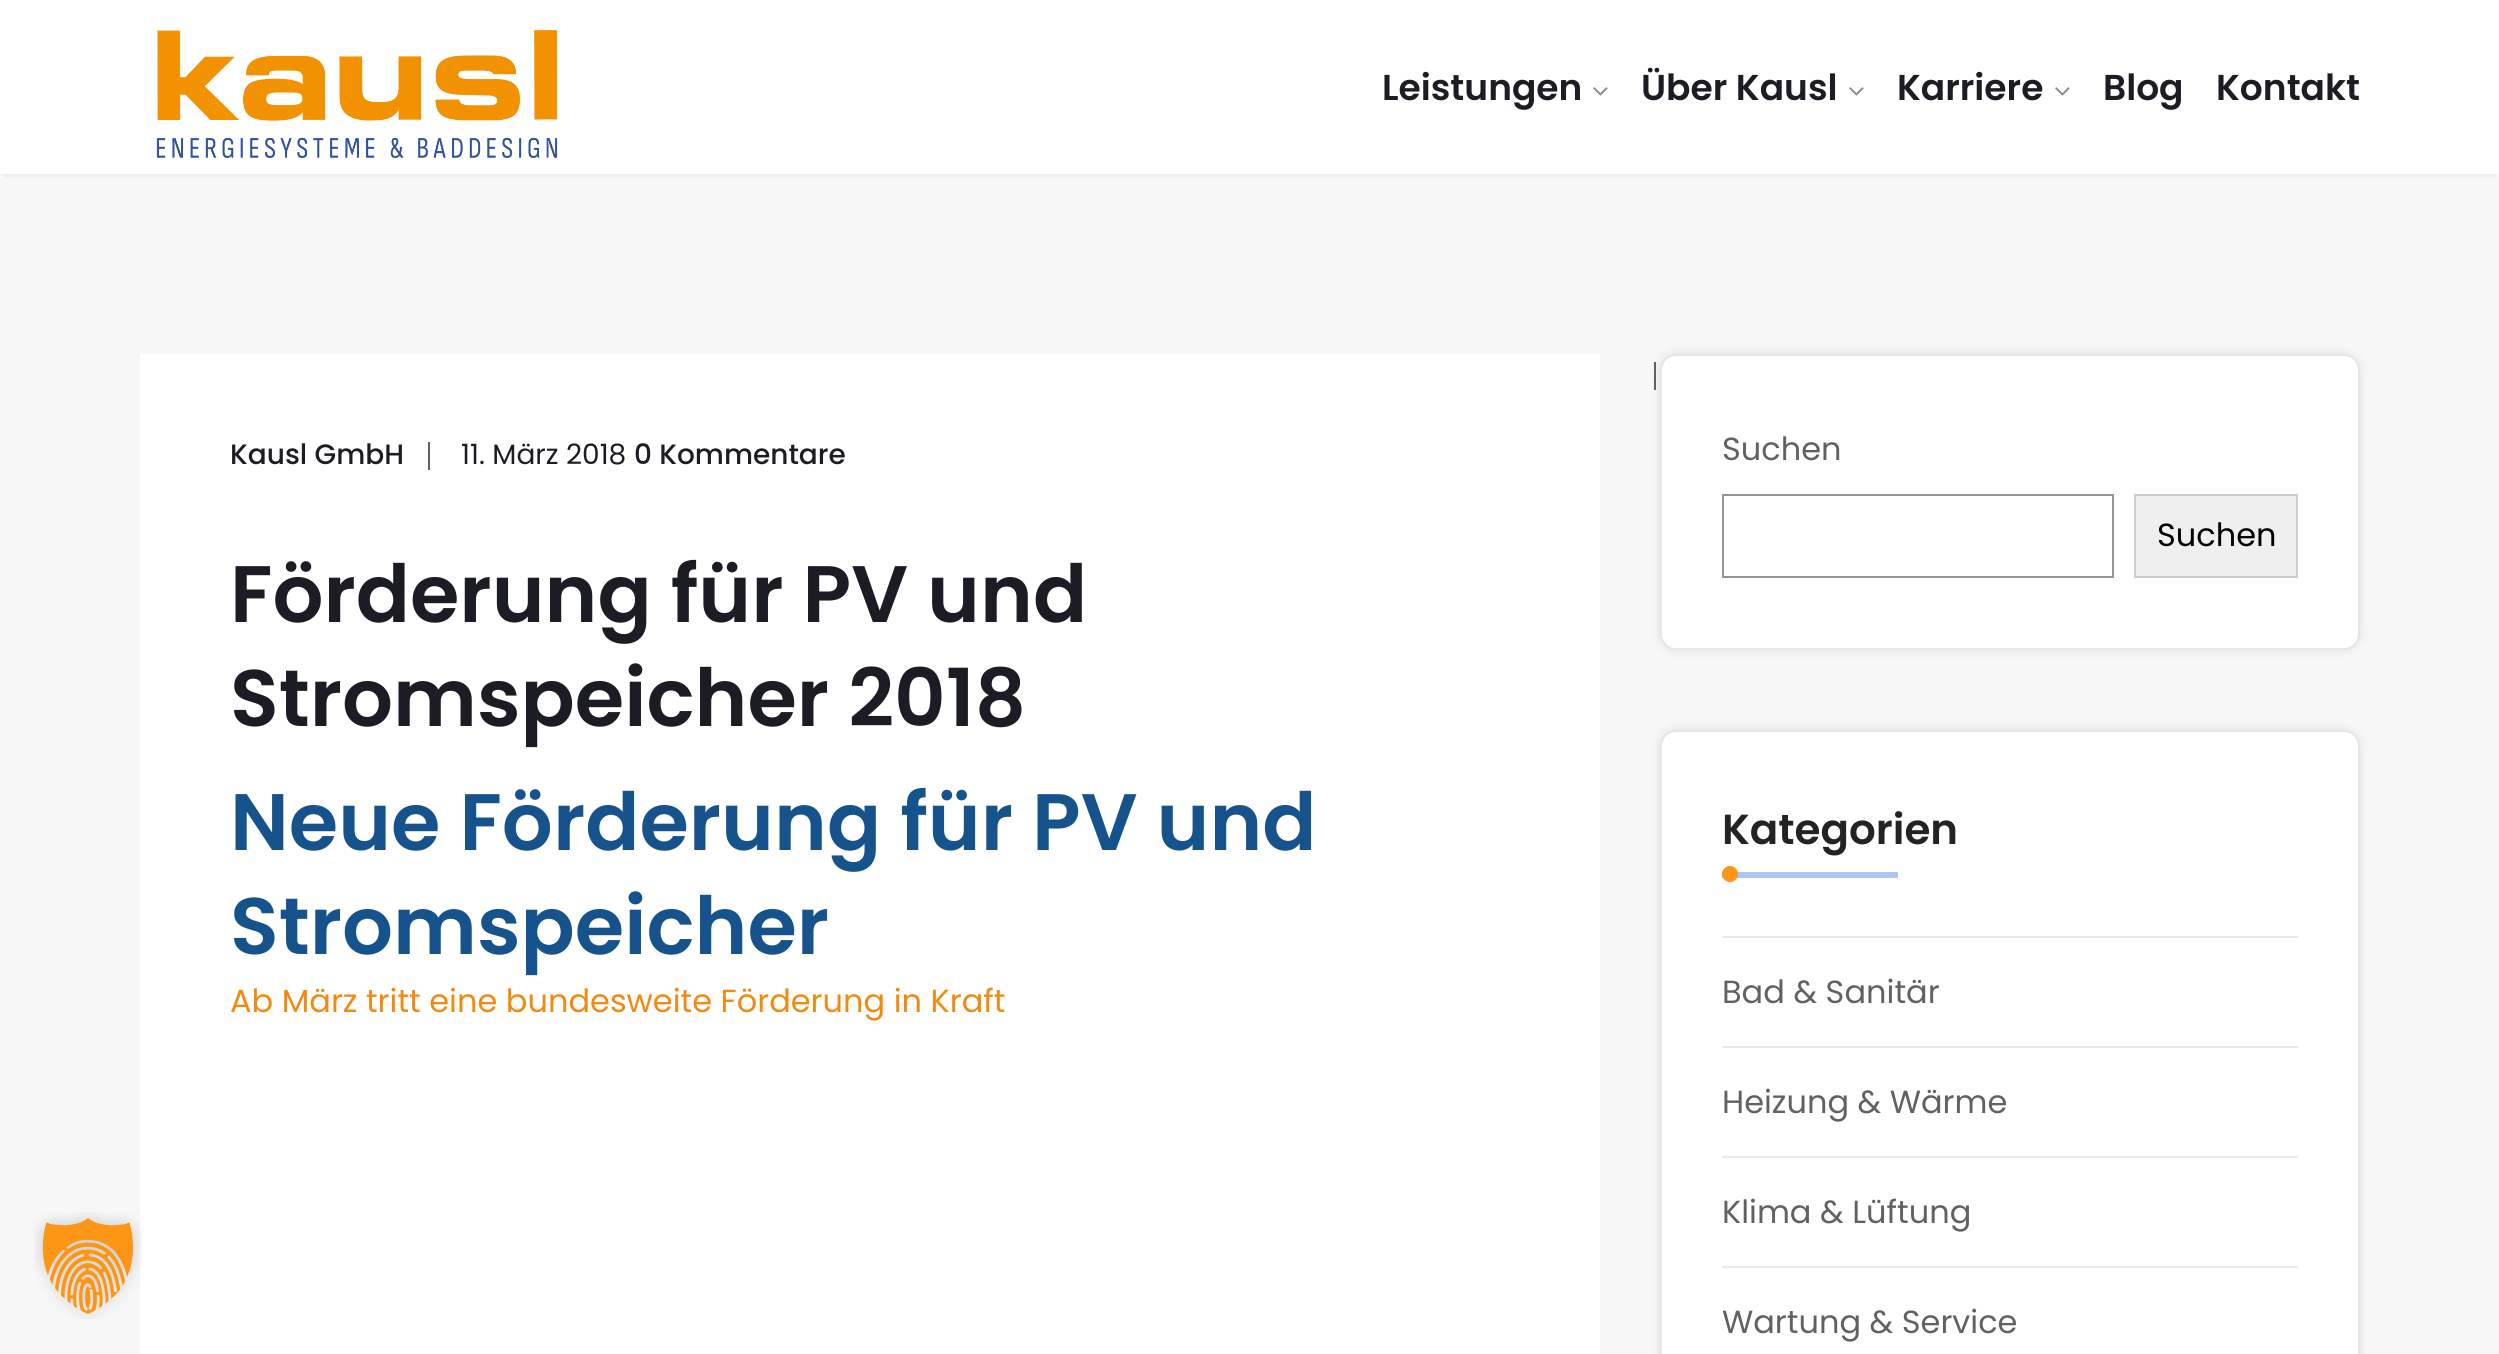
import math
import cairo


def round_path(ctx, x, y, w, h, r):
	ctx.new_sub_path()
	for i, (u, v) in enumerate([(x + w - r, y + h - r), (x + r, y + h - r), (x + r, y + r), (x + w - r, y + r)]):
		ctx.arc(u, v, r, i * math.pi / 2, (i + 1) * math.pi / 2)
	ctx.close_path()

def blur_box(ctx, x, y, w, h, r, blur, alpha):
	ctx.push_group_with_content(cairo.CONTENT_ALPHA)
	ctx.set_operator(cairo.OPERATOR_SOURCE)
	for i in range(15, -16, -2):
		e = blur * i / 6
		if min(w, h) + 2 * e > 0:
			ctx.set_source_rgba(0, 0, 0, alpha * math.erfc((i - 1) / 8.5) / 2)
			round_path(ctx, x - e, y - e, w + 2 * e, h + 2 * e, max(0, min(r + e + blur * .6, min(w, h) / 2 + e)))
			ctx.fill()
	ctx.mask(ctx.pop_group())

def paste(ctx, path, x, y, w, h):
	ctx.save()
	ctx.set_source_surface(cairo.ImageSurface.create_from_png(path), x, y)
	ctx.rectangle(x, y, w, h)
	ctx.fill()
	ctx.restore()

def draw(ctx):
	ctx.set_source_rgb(1, 1, 1)
	ctx.paint()
	ctx.set_source_rgb(0.965, 0.965, 0.965)
	ctx.rectangle(0, 174, 2499, 1180)
	ctx.fill()
	ctx.set_source_rgb(1, 1, 1)
	ctx.rectangle(140, 354, 1460, 1000)
	ctx.fill()
	paste(ctx, 'media/1.png', 34, 1212, 108, 107)
	ctx.save()
	ctx.rectangle(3, 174, 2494, 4)
	ctx.clip()
	ctx.set_source_rgb(0, 0, 0)
	blur_box(ctx, 4, 8, 2492, 166, 0, 5, 0.1)
	ctx.restore()
	paste(ctx, 'media/2.png', 156, 30, 402, 128)
	ctx.select_font_face('Poppins SemiBold')
	ctx.set_font_size(36)
	ctx.set_source_rgb(0.11, 0.11, 0.141)
	ctx.move_to(1382, 100)
	ctx.show_text('Leistungen')
	paste(ctx, 'media/3.png', 1593, 87, 15, 9)
	ctx.move_to(1641, 100)
	ctx.show_text('Über Kausl')
	paste(ctx, 'media/3.png', 1849, 87, 15, 9)
	ctx.move_to(1897, 100)
	ctx.show_text('Karriere')
	paste(ctx, 'media/3.png', 2055, 87, 15, 9)
	ctx.move_to(2103, 100)
	ctx.show_text('Blog')
	ctx.move_to(2216, 100)
	ctx.show_text('Kontakt')
	ctx.select_font_face('Poppins Medium')
	ctx.set_font_size(28)
	ctx.move_to(230, 464)
	ctx.show_text('Kausl GmbH')
	ctx.set_source_rgb(0.38, 0.38, 0.38)
	ctx.rectangle(428, 442, 2, 28)
	ctx.fill()
	ctx.rectangle(1654, 362, 2, 28)
	ctx.fill()
	ctx.select_font_face('Poppins')
	ctx.set_source_rgb(0.11, 0.11, 0.141)
	ctx.move_to(461, 464)
	ctx.show_text('11. März 2018')
	ctx.select_font_face('Poppins Medium')
	ctx.move_to(634, 464)
	ctx.show_text('0 Kommentare')
	ctx.select_font_face('Poppins SemiBold')
	ctx.set_font_size(80)
	ctx.move_to(230, 622)
	ctx.show_text('Förderung für PV und')
	ctx.move_to(230, 726)
	ctx.show_text('Stromspeicher 2018')
	ctx.set_source_rgb(0.086, 0.325, 0.549)
	ctx.move_to(230, 850)
	ctx.show_text('Neue Förderung für PV und')
	ctx.move_to(230, 954)
	ctx.show_text('Stromspeicher')
	ctx.select_font_face('Poppins')
	ctx.set_font_size(32)
	ctx.set_source_rgb(0.941, 0.541, 0.063)
	ctx.move_to(230, 1012)
	ctx.show_text('Ab März tritt eine bundesweite Förderung in Kraft')
	ctx.set_source_rgb(0, 0, 0)
	blur_box(ctx, 1660, 354, 700, 296, 16, 5, 0.1)
	ctx.set_source_rgb(1, 1, 1)
	round_path(ctx, 1661, 355, 698, 294, 15)
	ctx.fill_preserve()
	ctx.set_source_rgb(0.902, 0.902, 0.902)
	ctx.stroke()
	ctx.set_source_rgb(0.38, 0.38, 0.38)
	ctx.move_to(1722, 460)
	ctx.show_text('Suchen')
	ctx.rectangle(1723, 495, 390, 82)
	ctx.set_source_rgb(0.58, 0.58, 0.58)
	ctx.stroke()
	ctx.set_source_rgb(0.937, 0.937, 0.937)
	ctx.rectangle(2135, 495, 162, 82)
	ctx.fill_preserve()
	ctx.set_source_rgb(0.8, 0.8, 0.8)
	ctx.stroke()
	ctx.set_source_rgb(0, 0, 0)
	ctx.move_to(2157, 546)
	ctx.show_text('Suchen')
	ctx.set_source_rgb(0, 0, 0)
	blur_box(ctx, 1660, 730, 700, 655, 16, 5, 0.1)
	ctx.set_source_rgb(1, 1, 1)
	round_path(ctx, 1661, 731, 698, 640, 15)
	ctx.fill_preserve()
	ctx.set_source_rgb(0.902, 0.902, 0.902)
	ctx.stroke()
	ctx.select_font_face('Poppins SemiBold')
	ctx.set_font_size(42)
	ctx.set_source_rgb(0.137, 0.137, 0.137)
	ctx.move_to(1722, 844)
	ctx.show_text('Kategorien')
	ctx.set_source_rgb(0.682, 0.776, 0.937)
	ctx.rectangle(1722, 872, 176, 6)
	ctx.fill()
	ctx.set_source_rgb(0.988, 0.588, 0.082)
	ctx.arc(1730, 874, 8, 0, 2 * math.pi)
	ctx.fill()
	ctx.set_source_rgb(0.91, 0.91, 0.91)
	ctx.rectangle(1722, 936, 576, 2)
	ctx.fill()
	ctx.select_font_face('Poppins')
	ctx.set_font_size(32)
	ctx.set_source_rgb(0.38, 0.38, 0.38)
	ctx.move_to(1722, 1003)
	ctx.show_text('Bad & Sanitär')
	ctx.set_source_rgb(0.91, 0.91, 0.91)
	ctx.rectangle(1722, 1046, 576, 2)
	ctx.fill()
	ctx.set_source_rgb(0.38, 0.38, 0.38)
	ctx.move_to(1722, 1113)
	ctx.show_text('Heizung & Wärme')
	ctx.set_source_rgb(0.91, 0.91, 0.91)
	ctx.rectangle(1722, 1156, 576, 2)
	ctx.fill()
	ctx.set_source_rgb(0.38, 0.38, 0.38)
	ctx.move_to(1722, 1223)
	ctx.show_text('Klima & Lüftung')
	ctx.set_source_rgb(0.91, 0.91, 0.91)
	ctx.rectangle(1722, 1266, 576, 2)
	ctx.fill()
	ctx.set_source_rgb(0.38, 0.38, 0.38)
	ctx.move_to(1722, 1333)
	ctx.show_text('Wartung & Service')


surface = cairo.ImageSurface(cairo.FORMAT_RGB24, 2499, 1354)
ctx = cairo.Context(surface)
options = cairo.FontOptions()
options.set_hint_metrics(cairo.HINT_METRICS_OFF)
options.set_hint_style(cairo.HINT_STYLE_NONE)
ctx.set_font_options(options)
ctx.set_miter_limit(4)
draw(ctx)
surface.write_to_png('image.png')
